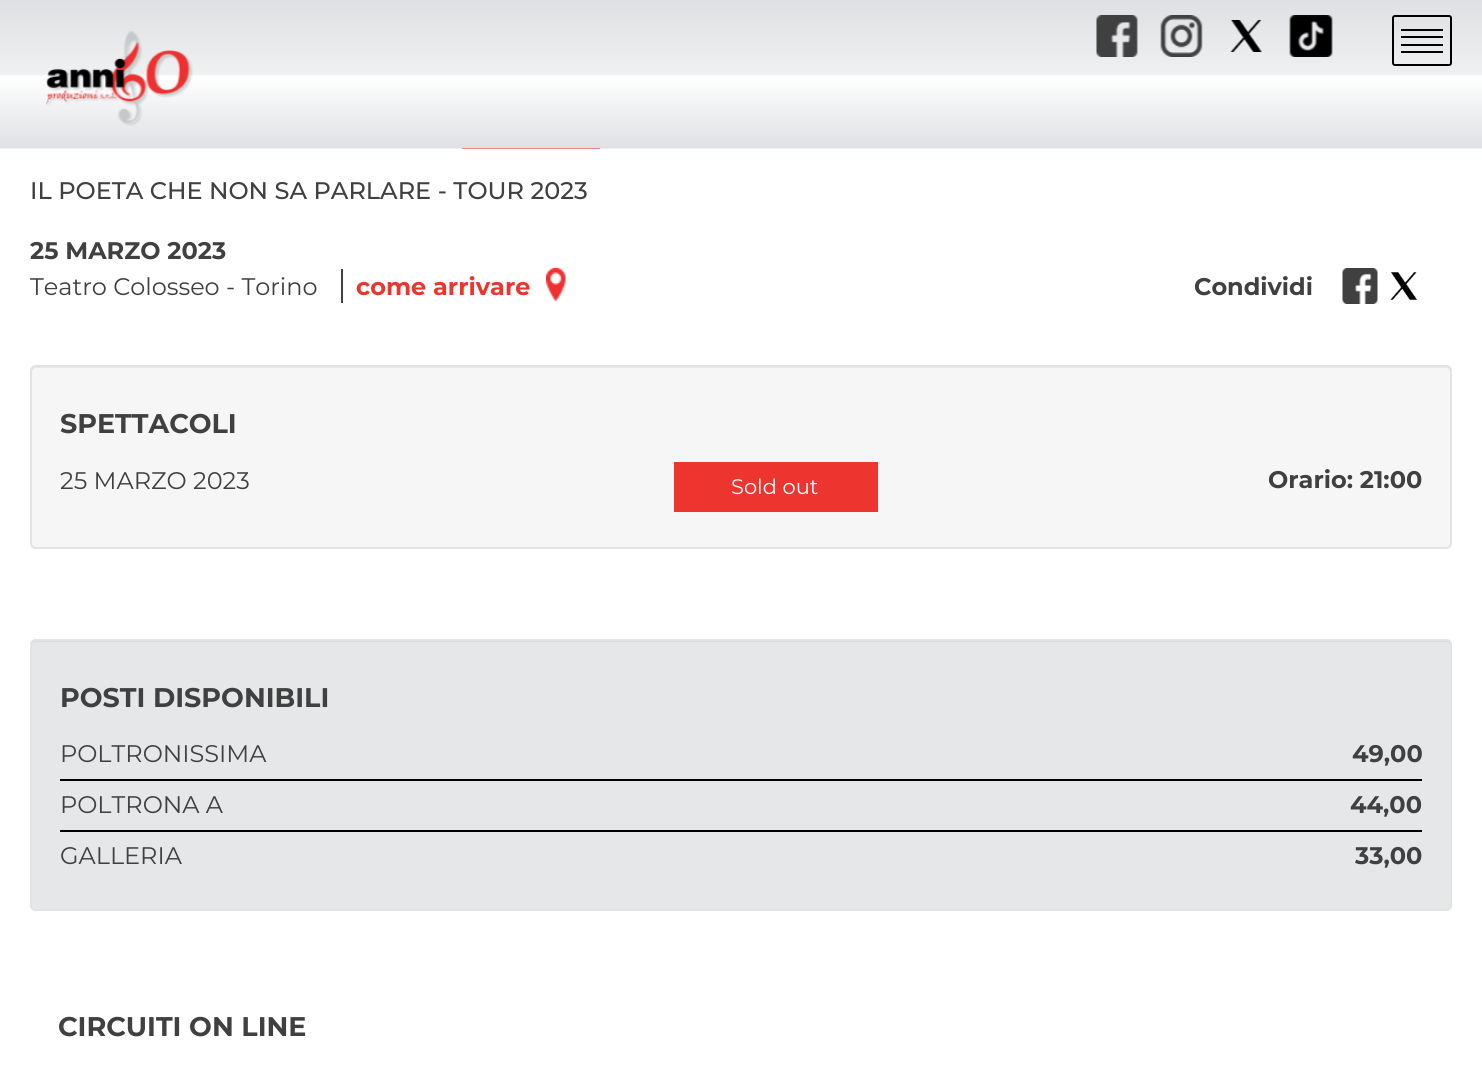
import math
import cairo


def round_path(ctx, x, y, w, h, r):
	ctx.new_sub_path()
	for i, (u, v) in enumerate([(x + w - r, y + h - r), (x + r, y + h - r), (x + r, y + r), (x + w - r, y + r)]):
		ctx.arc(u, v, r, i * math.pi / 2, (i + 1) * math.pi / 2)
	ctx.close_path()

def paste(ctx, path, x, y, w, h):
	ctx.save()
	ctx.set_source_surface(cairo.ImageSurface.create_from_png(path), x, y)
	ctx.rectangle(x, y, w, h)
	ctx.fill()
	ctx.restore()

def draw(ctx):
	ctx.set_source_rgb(1, 1, 1)
	ctx.paint()
	ctx.set_source_rgb(0.933, 0.204, 0.184)
	ctx.rectangle(462, 148, 138, 1)
	ctx.fill()
	paste(ctx, 'media/1.png', 0, 0, 1482, 149)
	paste(ctx, 'media/2.png', 46, 31, 147, 95)
	paste(ctx, 'media/3.png', 1096, 15, 42, 42)
	paste(ctx, 'media/4.png', 1160, 15, 43, 42)
	paste(ctx, 'media/5.png', 1230, 20, 32, 32)
	paste(ctx, 'media/6.png', 1289, 15, 44, 42)
	round_path(ctx, 1393, 16, 58, 49, 2)
	ctx.set_source_rgb(0, 0, 0)
	ctx.stroke()
	ctx.rectangle(1401, 29, 42, 2)
	ctx.rectangle(1401, 36, 42, 2)
	ctx.rectangle(1401, 44, 42, 2)
	ctx.rectangle(1401, 51, 42, 2)
	ctx.fill()
	ctx.select_font_face('Montserrat Medium')
	ctx.set_font_size(24)
	ctx.set_source_rgb(0.251, 0.251, 0.255)
	ctx.move_to(30, 199)
	ctx.show_text('IL POETA CHE NON SA PARLARE - TOUR 2023')
	ctx.select_font_face('Montserrat', cairo.FONT_SLANT_NORMAL, cairo.FONT_WEIGHT_BOLD)
	ctx.move_to(30, 259)
	ctx.show_text('25 MARZO 2023')
	ctx.rectangle(341, 269, 2, 34)
	ctx.fill()
	ctx.select_font_face('Montserrat')
	ctx.move_to(30, 295)
	ctx.show_text('Teatro Colosseo - Torino')
	ctx.select_font_face('Montserrat', cairo.FONT_SLANT_NORMAL, cairo.FONT_WEIGHT_BOLD)
	ctx.set_source_rgb(0.933, 0.204, 0.184)
	ctx.move_to(356, 295)
	ctx.show_text('come arrivare')
	paste(ctx, 'media/7.png', 546, 268, 20, 33)
	ctx.set_source_rgb(0.251, 0.251, 0.255)
	ctx.move_to(1194, 295)
	ctx.show_text('Condividi')
	paste(ctx, 'media/8.png', 1342, 268, 36, 36)
	paste(ctx, 'media/9.png', 1390, 272, 27, 28)
	ctx.set_source_rgb(0.961, 0.961, 0.961)
	round_path(ctx, 30, 365, 1422, 184, 6)
	ctx.fill()
	ctx.set_source_rgb(0.914, 0.914, 0.914)
	ctx.new_path()
	ctx.move_to(36, 368)
	ctx.line_to(1446, 368)
	ctx.curve_to(1448, 368, 1450, 370, 1450, 372)
	ctx.line_to(1450, 544)
	ctx.line_to(1449, 547)
	ctx.curve_to(1450, 546, 1451, 544, 1451, 543)
	ctx.line_to(1451, 371)
	ctx.curve_to(1451, 368, 1449, 366, 1446, 366)
	ctx.line_to(37, 366)
	ctx.curve_to(34, 366, 32, 368, 32, 371)
	ctx.line_to(32, 372)
	ctx.curve_to(32, 370, 34, 368, 36, 368)
	ctx.close_path()
	ctx.fill()
	round_path(ctx, 31, 366, 1420, 182, 5)
	ctx.set_source_rgb(0.89, 0.89, 0.89)
	ctx.stroke()
	ctx.set_font_size(27)
	ctx.set_source_rgb(0.251, 0.251, 0.255)
	ctx.move_to(60, 433)
	ctx.show_text('SPETTACOLI')
	ctx.select_font_face('Montserrat')
	ctx.set_font_size(24)
	ctx.move_to(60, 489)
	ctx.show_text('25 MARZO 2023')
	ctx.set_source_rgb(0.933, 0.204, 0.184)
	ctx.rectangle(674, 462, 204, 50)
	ctx.fill()
	ctx.set_font_size(21)
	ctx.set_source_rgb(1, 1, 1)
	ctx.move_to(731, 494)
	ctx.show_text('Sold out')
	ctx.select_font_face('Montserrat', cairo.FONT_SLANT_NORMAL, cairo.FONT_WEIGHT_BOLD)
	ctx.set_font_size(24)
	ctx.set_source_rgb(0.251, 0.251, 0.255)
	ctx.move_to(1268, 488)
	ctx.show_text('Orario: 21:00')
	ctx.set_source_rgb(0.902, 0.906, 0.91)
	round_path(ctx, 30, 639, 1422, 272, 6)
	ctx.fill()
	ctx.set_source_rgb(0.859, 0.859, 0.863)
	ctx.new_path()
	ctx.move_to(36, 642)
	ctx.line_to(1446, 642)
	ctx.curve_to(1448, 642, 1450, 644, 1450, 646)
	ctx.line_to(1450, 907)
	ctx.curve_to(1451, 906, 1451, 905, 1451, 904)
	ctx.line_to(1451, 646)
	ctx.curve_to(1451, 643, 1449, 641, 1446, 641)
	ctx.line_to(37, 641)
	ctx.curve_to(34, 641, 32, 643, 32, 646)
	ctx.curve_to(32, 644, 34, 642, 36, 642)
	ctx.close_path()
	ctx.fill()
	round_path(ctx, 31, 640, 1420, 270, 5)
	ctx.set_source_rgb(0.89, 0.89, 0.89)
	ctx.stroke()
	ctx.set_font_size(27)
	ctx.set_source_rgb(0.251, 0.251, 0.255)
	ctx.move_to(60, 707)
	ctx.show_text('POSTI DISPONIBILI')
	ctx.set_source_rgb(0, 0, 0)
	ctx.rectangle(60, 779, 1362, 2)
	ctx.fill()
	ctx.select_font_face('Montserrat')
	ctx.set_font_size(24)
	ctx.set_source_rgb(0.251, 0.251, 0.255)
	ctx.move_to(60, 762)
	ctx.show_text('POLTRONISSIMA')
	ctx.select_font_face('Montserrat', cairo.FONT_SLANT_NORMAL, cairo.FONT_WEIGHT_BOLD)
	ctx.move_to(1352, 762)
	ctx.show_text('49,00')
	ctx.set_source_rgb(0, 0, 0)
	ctx.rectangle(60, 830, 1362, 2)
	ctx.fill()
	ctx.select_font_face('Montserrat')
	ctx.set_source_rgb(0.251, 0.251, 0.255)
	ctx.move_to(60, 813)
	ctx.show_text('POLTRONA A')
	ctx.select_font_face('Montserrat', cairo.FONT_SLANT_NORMAL, cairo.FONT_WEIGHT_BOLD)
	ctx.move_to(1350, 813)
	ctx.show_text('44,00')
	ctx.select_font_face('Montserrat')
	ctx.move_to(60, 864)
	ctx.show_text('GALLERIA')
	ctx.select_font_face('Montserrat', cairo.FONT_SLANT_NORMAL, cairo.FONT_WEIGHT_BOLD)
	ctx.move_to(1355, 864)
	ctx.show_text('33,00')
	ctx.set_font_size(27)
	ctx.move_to(58, 1036)
	ctx.show_text('CIRCUITI ON LINE')


surface = cairo.ImageSurface(cairo.FORMAT_RGB24, 1482, 1070)
ctx = cairo.Context(surface)
options = cairo.FontOptions()
options.set_hint_metrics(cairo.HINT_METRICS_OFF)
options.set_hint_style(cairo.HINT_STYLE_NONE)
ctx.set_font_options(options)
ctx.set_miter_limit(4)
draw(ctx)
surface.write_to_png('image.png')
